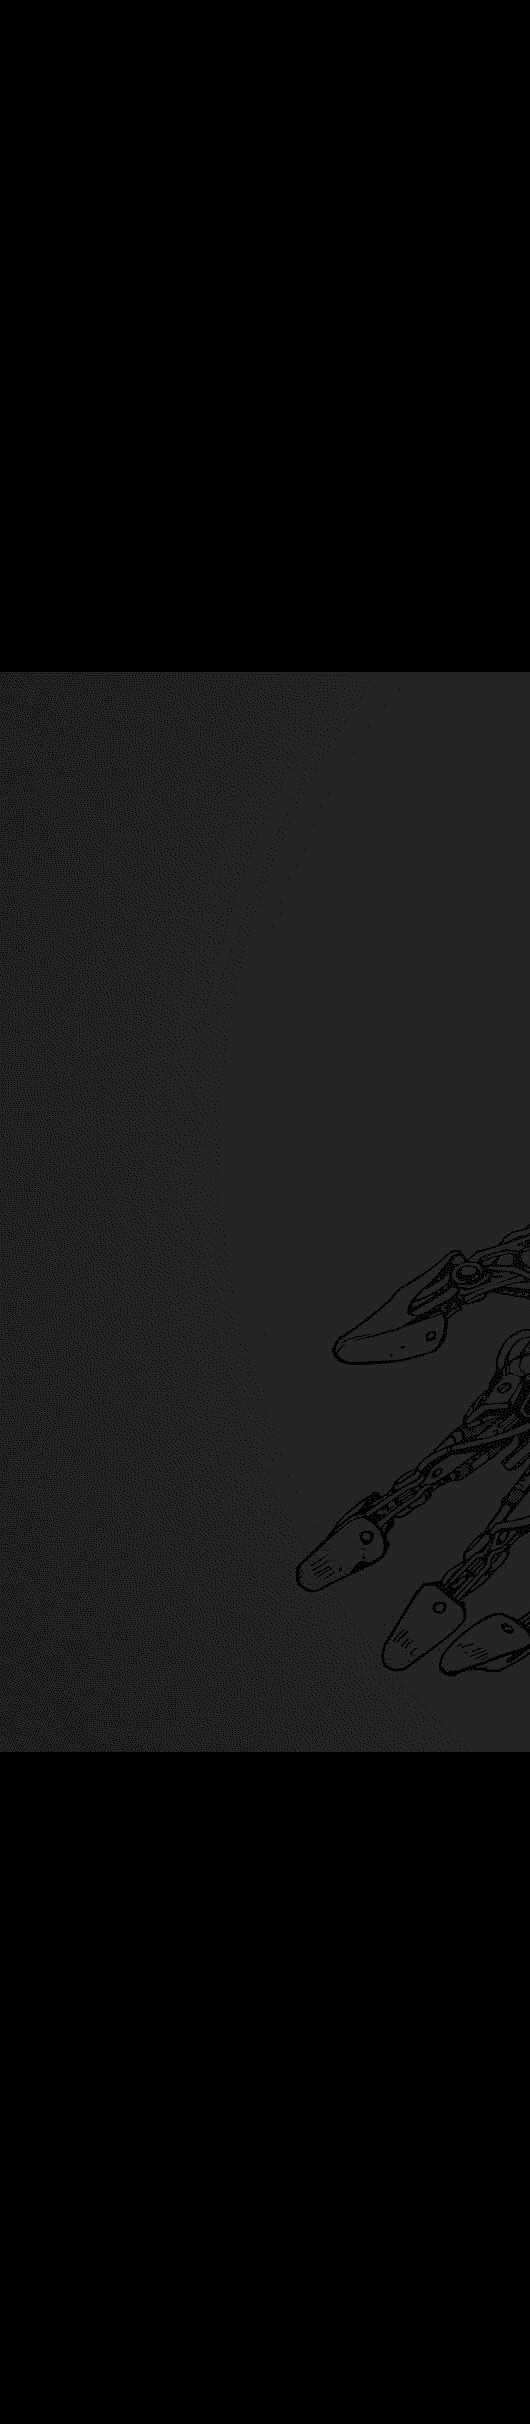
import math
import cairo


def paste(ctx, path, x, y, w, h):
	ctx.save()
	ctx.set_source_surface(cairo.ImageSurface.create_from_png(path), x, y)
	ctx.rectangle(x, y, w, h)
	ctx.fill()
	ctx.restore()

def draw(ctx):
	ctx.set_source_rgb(0, 0, 0)
	ctx.paint()
	paste(ctx, 'media/1.png', 0, 672, 530, 1080)


surface = cairo.ImageSurface(cairo.FORMAT_RGB24, 530, 2424)
ctx = cairo.Context(surface)
options = cairo.FontOptions()
options.set_hint_metrics(cairo.HINT_METRICS_OFF)
options.set_hint_style(cairo.HINT_STYLE_NONE)
ctx.set_font_options(options)
ctx.set_miter_limit(4)
draw(ctx)
surface.write_to_png('image.png')
